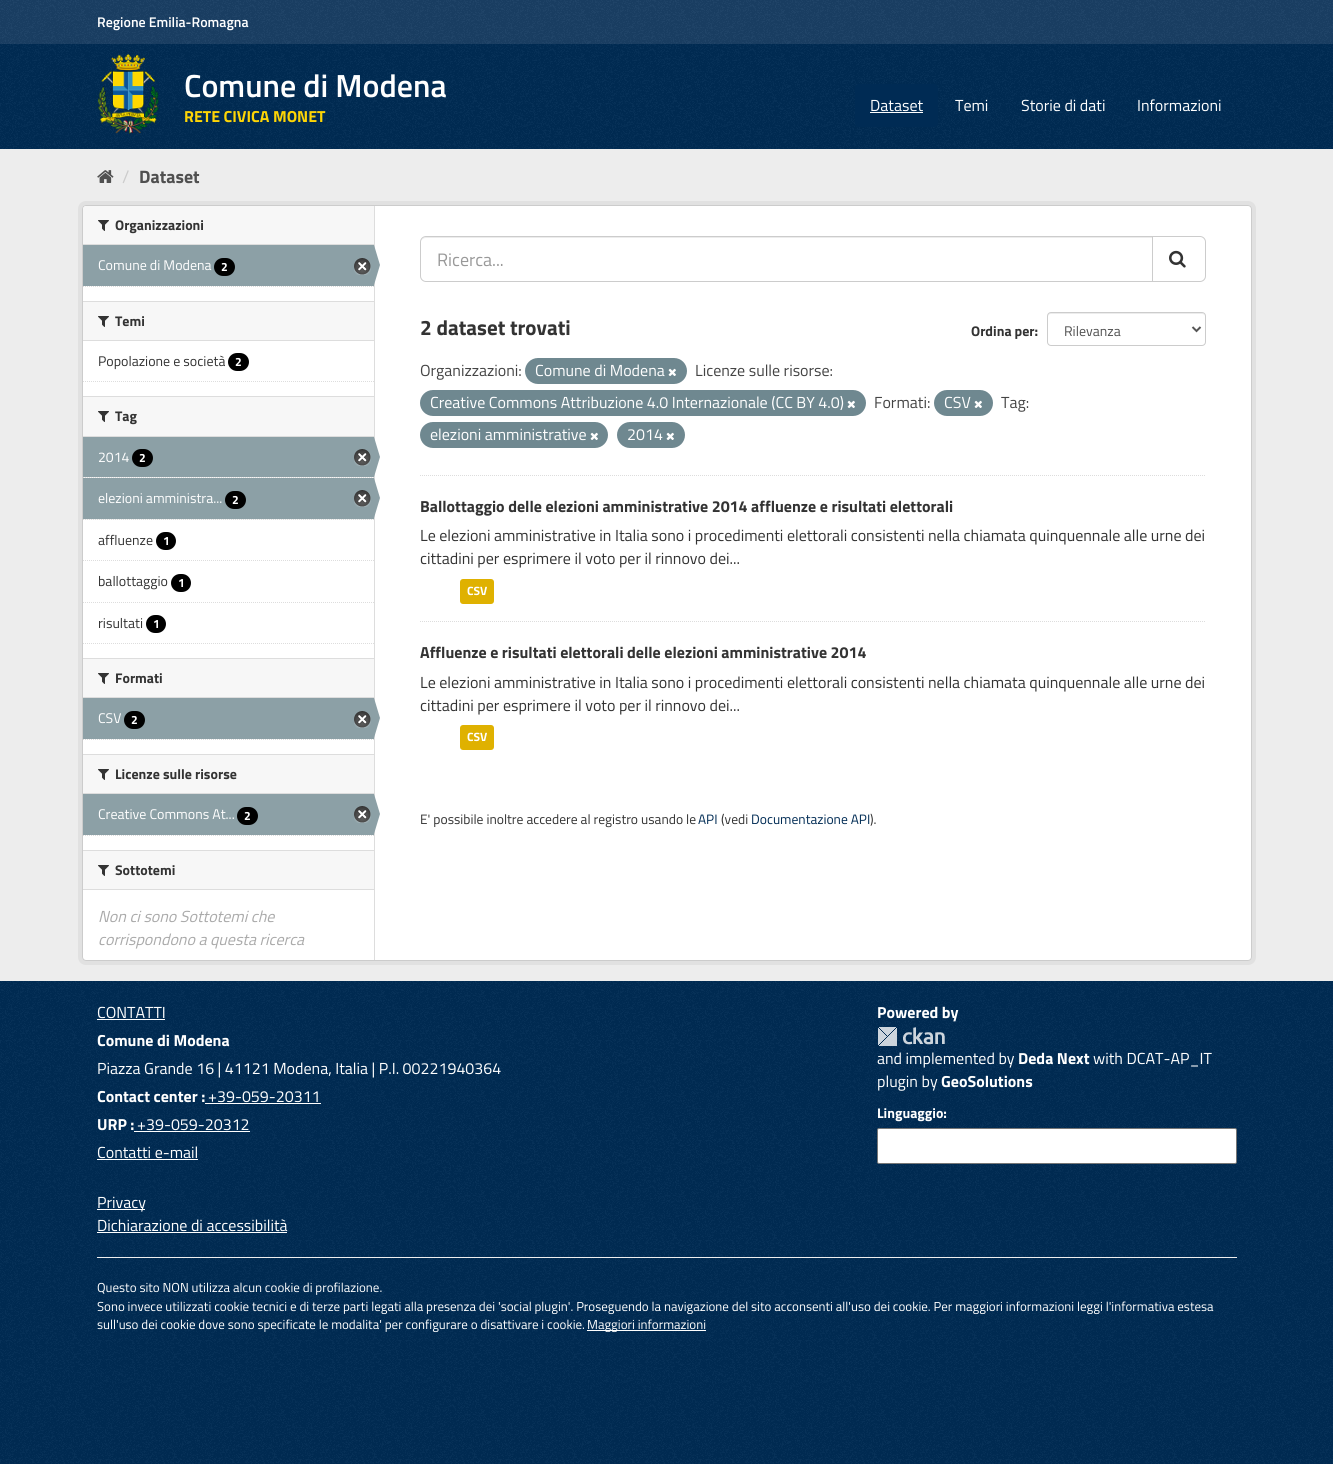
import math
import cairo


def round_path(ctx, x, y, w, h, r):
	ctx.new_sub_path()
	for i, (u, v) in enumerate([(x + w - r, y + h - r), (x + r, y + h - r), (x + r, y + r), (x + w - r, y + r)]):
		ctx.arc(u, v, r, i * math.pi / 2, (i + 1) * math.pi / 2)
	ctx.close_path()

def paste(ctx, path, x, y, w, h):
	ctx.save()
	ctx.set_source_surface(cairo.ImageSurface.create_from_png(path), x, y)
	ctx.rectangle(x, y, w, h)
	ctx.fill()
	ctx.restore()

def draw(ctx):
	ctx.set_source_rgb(0, 0.169, 0.329)
	ctx.paint()
	paste(ctx, 'media/1.png', 0, 1354, 1333, 110)
	ctx.set_source_rgb(0.102, 0.247, 0.392)
	ctx.rectangle(0, 0, 1333, 44)
	ctx.fill()
	paste(ctx, 'media/2.png', 0, 0, 1333, 44)
	ctx.select_font_face('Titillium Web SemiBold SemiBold')
	ctx.set_font_size(14)
	ctx.set_source_rgb(1, 1, 1)
	ctx.move_to(97, 27)
	ctx.show_text('Regione Emilia-Romagna')
	paste(ctx, 'media/3.png', 0, 44, 1333, 105)
	paste(ctx, 'media/4.png', 98, 54, 61, 80)
	ctx.set_font_size(32)
	ctx.move_to(184, 97)
	ctx.show_text('Comune di Modena')
	ctx.select_font_face('Titillium Web', cairo.FONT_SLANT_NORMAL, cairo.FONT_WEIGHT_BOLD)
	ctx.set_font_size(16)
	ctx.set_source_rgb(0.996, 0.835, 0.02)
	ctx.move_to(184, 122)
	ctx.show_text('RETE CIVICA MONET')
	ctx.set_source_rgb(0, 0.169, 0.329)
	round_path(ctx, 855, 84, 83, 43, 4)
	ctx.fill()
	ctx.select_font_face('Titillium Web')
	ctx.set_source_rgb(1, 1, 1)
	ctx.move_to(870, 111)
	ctx.show_text('Dataset')
	ctx.rectangle(870, 112, 53, 1)
	ctx.fill()
	for x, y, s in [
		(955, 111, 'Temi'),
		(1021, 111, 'Storie di dati'),
		(1137, 111, 'Informazioni'),
	]:
		ctx.move_to(x, y)
		ctx.show_text(s)
	ctx.set_source_rgb(0.929, 0.929, 0.929)
	ctx.rectangle(0, 149, 1333, 832)
	ctx.fill()
	paste(ctx, 'media/5.png', 97, 170, 17, 13)
	ctx.set_font_size(18)
	ctx.set_source_rgb(0.8, 0.8, 0.8)
	ctx.move_to(122, 183)
	ctx.show_text('/')
	ctx.select_font_face('Titillium Web', cairo.FONT_SLANT_NORMAL, cairo.FONT_WEIGHT_BOLD)
	ctx.set_source_rgb(0.314, 0.314, 0.314)
	ctx.move_to(139, 183)
	ctx.show_text('Dataset')
	round_path(ctx, 80, 203, 1174, 760, 6)
	ctx.set_source_rgb(0.882, 0.882, 0.882)
	ctx.set_line_width(4)
	ctx.stroke()
	ctx.set_source_rgb(1, 1, 1)
	round_path(ctx, 82.5, 205.5, 1169, 755, 3.5)
	ctx.fill_preserve()
	ctx.set_source_rgb(0.8, 0.8, 0.8)
	ctx.set_line_width(1)
	ctx.stroke()
	ctx.set_source_rgb(0.965, 0.965, 0.965)
	ctx.new_path()
	ctx.move_to(86, 206)
	ctx.line_to(374, 206)
	ctx.line_to(374, 245)
	ctx.line_to(83, 245)
	ctx.line_to(83, 209)
	ctx.curve_to(83, 207.5, 84.5, 206, 86, 206)
	ctx.close_path()
	ctx.fill()
	ctx.set_source_rgb(0.867, 0.867, 0.867)
	ctx.rectangle(83, 244, 291, 1)
	ctx.fill()
	paste(ctx, 'media/6.png', 98, 220, 11, 11)
	ctx.set_font_size(14)
	ctx.set_source_rgb(0.2, 0.2, 0.2)
	ctx.move_to(115, 230)
	ctx.show_text('Organizzazioni')
	ctx.set_source_rgb(0.549, 0.627, 0.651)
	ctx.rectangle(83, 245, 291, 41)
	ctx.fill()
	ctx.select_font_face('Titillium Web')
	ctx.set_source_rgb(1, 1, 1)
	ctx.move_to(98, 270)
	ctx.show_text('Comune di Modena')
	ctx.set_source_rgb(0, 0, 0)
	round_path(ctx, 214, 258, 21, 18, 9)
	ctx.fill()
	ctx.select_font_face('Titillium Web', cairo.FONT_SLANT_NORMAL, cairo.FONT_WEIGHT_BOLD)
	ctx.set_font_size(12)
	ctx.set_source_rgb(1, 1, 1)
	ctx.move_to(221, 271)
	ctx.show_text('2')
	paste(ctx, 'media/7.png', 354, 258, 17, 17)
	ctx.set_source_rgb(0.867, 0.867, 0.867)
	ctx.rectangle(374, 206, 1, 754)
	ctx.fill()
	ctx.set_source_rgb(0.549, 0.627, 0.651)
	ctx.new_path()
	ctx.move_to(374, 285)
	ctx.line_to(374, 245)
	ctx.line_to(380, 265)
	ctx.close_path()
	ctx.fill()
	ctx.new_path()
	ctx.move_to(83, 286.5)
	ctx.line_to(374, 286.5)
	ctx.set_source_rgb(0.867, 0.867, 0.867)
	ctx.set_dash([1, 1])
	ctx.stroke()
	ctx.set_source_rgb(0.965, 0.965, 0.965)
	ctx.rectangle(83, 302, 291, 38)
	ctx.fill()
	ctx.set_source_rgb(0.867, 0.867, 0.867)
	ctx.rectangle(83, 301, 291, 1)
	ctx.rectangle(83, 340, 291, 1)
	ctx.fill()
	paste(ctx, 'media/6.png', 98, 316, 11, 11)
	ctx.set_font_size(14)
	ctx.set_source_rgb(0.2, 0.2, 0.2)
	ctx.move_to(115, 326)
	ctx.show_text('Temi')
	ctx.select_font_face('Titillium Web')
	ctx.move_to(98, 366)
	ctx.show_text('Popolazione e società')
	ctx.set_source_rgb(0, 0, 0)
	round_path(ctx, 228, 353, 21, 18, 9)
	ctx.fill()
	ctx.select_font_face('Titillium Web', cairo.FONT_SLANT_NORMAL, cairo.FONT_WEIGHT_BOLD)
	ctx.set_font_size(12)
	ctx.set_source_rgb(1, 1, 1)
	ctx.move_to(235, 366)
	ctx.show_text('2')
	ctx.new_path()
	ctx.move_to(83, 381.5)
	ctx.line_to(374, 381.5)
	ctx.set_source_rgb(0.867, 0.867, 0.867)
	ctx.stroke()
	ctx.set_source_rgb(0.965, 0.965, 0.965)
	ctx.rectangle(83, 397, 291, 39)
	ctx.fill()
	ctx.set_source_rgb(0.867, 0.867, 0.867)
	ctx.rectangle(83, 396, 291, 1)
	ctx.rectangle(83, 436, 291, 1)
	ctx.fill()
	paste(ctx, 'media/6.png', 98, 411, 11, 11)
	ctx.set_font_size(14)
	ctx.set_source_rgb(0.2, 0.2, 0.2)
	ctx.move_to(115, 421)
	ctx.show_text('Tag')
	ctx.set_source_rgb(0.965, 0.965, 0.965)
	ctx.rectangle(84, 477, 289, 1)
	ctx.fill()
	ctx.new_path()
	ctx.move_to(83, 477.5)
	ctx.line_to(374, 477.5)
	ctx.set_source_rgb(0.867, 0.867, 0.867)
	ctx.stroke()
	ctx.set_source_rgb(0.549, 0.627, 0.651)
	ctx.rectangle(83, 437, 291, 40)
	ctx.fill()
	ctx.select_font_face('Titillium Web')
	ctx.set_source_rgb(1, 1, 1)
	ctx.move_to(98, 462)
	ctx.show_text('2014')
	ctx.set_source_rgb(0, 0, 0)
	round_path(ctx, 132, 449, 21, 18, 9)
	ctx.fill()
	ctx.select_font_face('Titillium Web', cairo.FONT_SLANT_NORMAL, cairo.FONT_WEIGHT_BOLD)
	ctx.set_font_size(12)
	ctx.set_source_rgb(1, 1, 1)
	ctx.move_to(139, 462)
	ctx.show_text('2')
	paste(ctx, 'media/7.png', 354, 449, 17, 17)
	ctx.set_source_rgb(0.549, 0.627, 0.651)
	ctx.new_path()
	ctx.move_to(374, 477)
	ctx.line_to(374, 437)
	ctx.line_to(380, 457)
	ctx.close_path()
	ctx.fill()
	ctx.set_source_rgb(0.965, 0.965, 0.965)
	ctx.rectangle(84, 519, 289, 1)
	ctx.fill()
	ctx.new_path()
	ctx.move_to(83, 519.5)
	ctx.line_to(374, 519.5)
	ctx.set_source_rgb(0.867, 0.867, 0.867)
	ctx.stroke()
	ctx.set_source_rgb(0.549, 0.627, 0.651)
	ctx.rectangle(83, 478, 291, 41)
	ctx.fill()
	ctx.select_font_face('Titillium Web')
	ctx.set_font_size(14)
	ctx.set_source_rgb(1, 1, 1)
	ctx.move_to(98, 503)
	ctx.show_text('elezioni amministra...')
	ctx.set_source_rgb(0, 0, 0)
	round_path(ctx, 225, 491, 21, 18, 9)
	ctx.fill()
	ctx.select_font_face('Titillium Web', cairo.FONT_SLANT_NORMAL, cairo.FONT_WEIGHT_BOLD)
	ctx.set_font_size(12)
	ctx.set_source_rgb(1, 1, 1)
	ctx.move_to(232, 504)
	ctx.show_text('2')
	paste(ctx, 'media/7.png', 354, 490, 17, 17)
	ctx.set_source_rgb(0.549, 0.627, 0.651)
	ctx.new_path()
	ctx.move_to(374, 518)
	ctx.line_to(374, 478)
	ctx.line_to(380, 498)
	ctx.close_path()
	ctx.fill()
	ctx.new_path()
	ctx.move_to(83, 560.5)
	ctx.line_to(374, 560.5)
	ctx.set_source_rgb(0.867, 0.867, 0.867)
	ctx.stroke()
	ctx.select_font_face('Titillium Web')
	ctx.set_font_size(14)
	ctx.set_source_rgb(0.2, 0.2, 0.2)
	ctx.move_to(98, 545)
	ctx.show_text('affluenze')
	ctx.set_source_rgb(0, 0, 0)
	round_path(ctx, 156, 532, 20, 18, 9)
	ctx.fill()
	ctx.select_font_face('Titillium Web', cairo.FONT_SLANT_NORMAL, cairo.FONT_WEIGHT_BOLD)
	ctx.set_font_size(12)
	ctx.set_source_rgb(1, 1, 1)
	ctx.move_to(163, 545)
	ctx.show_text('1')
	ctx.new_path()
	ctx.move_to(83, 602.5)
	ctx.line_to(374, 602.5)
	ctx.set_source_rgb(0.867, 0.867, 0.867)
	ctx.stroke()
	ctx.select_font_face('Titillium Web')
	ctx.set_font_size(14)
	ctx.set_source_rgb(0.2, 0.2, 0.2)
	ctx.move_to(98, 586)
	ctx.show_text('ballottaggio')
	ctx.set_source_rgb(0, 0, 0)
	round_path(ctx, 171, 574, 20, 18, 9)
	ctx.fill()
	ctx.select_font_face('Titillium Web', cairo.FONT_SLANT_NORMAL, cairo.FONT_WEIGHT_BOLD)
	ctx.set_font_size(12)
	ctx.set_source_rgb(1, 1, 1)
	ctx.move_to(178, 587)
	ctx.show_text('1')
	ctx.select_font_face('Titillium Web')
	ctx.set_font_size(14)
	ctx.set_source_rgb(0.2, 0.2, 0.2)
	ctx.move_to(98, 628)
	ctx.show_text('risultati')
	ctx.set_source_rgb(0, 0, 0)
	round_path(ctx, 146, 615, 20, 18, 9)
	ctx.fill()
	ctx.select_font_face('Titillium Web', cairo.FONT_SLANT_NORMAL, cairo.FONT_WEIGHT_BOLD)
	ctx.set_font_size(12)
	ctx.set_source_rgb(1, 1, 1)
	ctx.move_to(153, 628)
	ctx.show_text('1')
	ctx.new_path()
	ctx.move_to(83, 643.5)
	ctx.line_to(374, 643.5)
	ctx.set_source_rgb(0.867, 0.867, 0.867)
	ctx.stroke()
	ctx.set_source_rgb(0.965, 0.965, 0.965)
	ctx.rectangle(83, 659, 291, 38)
	ctx.fill()
	ctx.set_source_rgb(0.867, 0.867, 0.867)
	ctx.rectangle(83, 658, 291, 1)
	ctx.rectangle(83, 697, 291, 1)
	ctx.fill()
	paste(ctx, 'media/6.png', 98, 673, 11, 11)
	ctx.set_font_size(14)
	ctx.set_source_rgb(0.2, 0.2, 0.2)
	ctx.move_to(115, 683)
	ctx.show_text('Formati')
	ctx.set_source_rgb(0.549, 0.627, 0.651)
	ctx.rectangle(83, 698, 291, 41)
	ctx.fill()
	ctx.select_font_face('Titillium Web')
	ctx.set_source_rgb(1, 1, 1)
	ctx.move_to(98, 723)
	ctx.show_text('CSV')
	ctx.set_source_rgb(0, 0, 0)
	round_path(ctx, 124, 711, 21, 18, 9)
	ctx.fill()
	ctx.select_font_face('Titillium Web', cairo.FONT_SLANT_NORMAL, cairo.FONT_WEIGHT_BOLD)
	ctx.set_font_size(12)
	ctx.set_source_rgb(1, 1, 1)
	ctx.move_to(131, 724)
	ctx.show_text('2')
	paste(ctx, 'media/7.png', 354, 711, 17, 17)
	ctx.set_source_rgb(0.549, 0.627, 0.651)
	ctx.new_path()
	ctx.move_to(374, 738)
	ctx.line_to(374, 698)
	ctx.line_to(380, 718)
	ctx.close_path()
	ctx.fill()
	ctx.new_path()
	ctx.move_to(83, 739.5)
	ctx.line_to(374, 739.5)
	ctx.set_source_rgb(0.867, 0.867, 0.867)
	ctx.stroke()
	ctx.set_source_rgb(0.965, 0.965, 0.965)
	ctx.rectangle(83, 755, 291, 38)
	ctx.fill()
	ctx.set_source_rgb(0.867, 0.867, 0.867)
	ctx.rectangle(83, 754, 291, 1)
	ctx.rectangle(83, 793, 291, 1)
	ctx.fill()
	paste(ctx, 'media/6.png', 98, 769, 11, 11)
	ctx.set_font_size(14)
	ctx.set_source_rgb(0.2, 0.2, 0.2)
	ctx.move_to(115, 779)
	ctx.show_text('Licenze sulle risorse')
	ctx.set_source_rgb(0.549, 0.627, 0.651)
	ctx.rectangle(83, 794, 291, 41)
	ctx.fill()
	ctx.select_font_face('Titillium Web')
	ctx.set_source_rgb(1, 1, 1)
	ctx.move_to(98, 819)
	ctx.show_text('Creative Commons At...')
	ctx.set_source_rgb(0, 0, 0)
	round_path(ctx, 237, 807, 21, 18, 9)
	ctx.fill()
	ctx.select_font_face('Titillium Web', cairo.FONT_SLANT_NORMAL, cairo.FONT_WEIGHT_BOLD)
	ctx.set_font_size(12)
	ctx.set_source_rgb(1, 1, 1)
	ctx.move_to(244, 820)
	ctx.show_text('2')
	paste(ctx, 'media/7.png', 354, 806, 17, 17)
	ctx.set_source_rgb(0.549, 0.627, 0.651)
	ctx.new_path()
	ctx.move_to(374, 834)
	ctx.line_to(374, 794)
	ctx.line_to(380, 814)
	ctx.close_path()
	ctx.fill()
	ctx.new_path()
	ctx.move_to(83, 835.5)
	ctx.line_to(374, 835.5)
	ctx.set_source_rgb(0.867, 0.867, 0.867)
	ctx.stroke()
	ctx.set_source_rgb(0.965, 0.965, 0.965)
	ctx.rectangle(83, 851, 291, 38)
	ctx.fill()
	ctx.set_source_rgb(0.867, 0.867, 0.867)
	ctx.rectangle(83, 850, 291, 1)
	ctx.rectangle(83, 889, 291, 1)
	ctx.fill()
	paste(ctx, 'media/6.png', 98, 865, 11, 11)
	ctx.set_font_size(14)
	ctx.set_source_rgb(0.2, 0.2, 0.2)
	ctx.move_to(115, 875)
	ctx.show_text('Sottotemi')
	ctx.select_font_face('Titillium Web', cairo.FONT_SLANT_ITALIC)
	ctx.set_font_size(16)
	ctx.set_source_rgb(0.667, 0.667, 0.667)
	ctx.move_to(98, 922)
	ctx.show_text('Non ci sono Sottotemi che')
	ctx.move_to(98, 945)
	ctx.show_text('corrispondono a questa ricerca')
	ctx.new_path()
	ctx.move_to(420, 475.5)
	ctx.line_to(1206, 475.5)
	ctx.set_source_rgb(0.867, 0.867, 0.867)
	ctx.stroke()
	ctx.set_source_rgb(0.925, 0.925, 0.925)
	ctx.new_path()
	ctx.move_to(426, 238)
	ctx.line_to(1152, 238)
	ctx.line_to(1152, 237)
	ctx.line_to(426, 237)
	ctx.curve_to(423, 237, 421, 240, 421, 243)
	ctx.curve_to(421, 240, 423, 238, 426, 238)
	ctx.close_path()
	ctx.fill()
	ctx.new_path()
	ctx.move_to(426, 236.5)
	ctx.line_to(1152.5, 236.5)
	ctx.line_to(1152.5, 281.5)
	ctx.line_to(426, 281.5)
	ctx.curve_to(423, 281.5, 420.5, 279, 420.5, 276)
	ctx.line_to(420.5, 242)
	ctx.curve_to(420.5, 239, 423, 236.5, 426, 236.5)
	ctx.close_path()
	ctx.set_source_rgb(0.8, 0.8, 0.8)
	ctx.set_dash([])
	ctx.stroke()
	ctx.select_font_face('Titillium Web')
	ctx.set_font_size(18)
	ctx.set_source_rgb(0.6, 0.6, 0.6)
	ctx.move_to(437, 266)
	ctx.show_text('Ricerca...')
	ctx.set_source_rgb(1, 1, 1)
	ctx.new_path()
	ctx.move_to(1152.5, 236.5)
	ctx.line_to(1200, 236.5)
	ctx.curve_to(1203, 236.5, 1205.5, 239, 1205.5, 242)
	ctx.line_to(1205.5, 276)
	ctx.curve_to(1205.5, 279, 1203, 281.5, 1200, 281.5)
	ctx.line_to(1152.5, 281.5)
	ctx.close_path()
	ctx.fill_preserve()
	ctx.set_source_rgb(0.8, 0.8, 0.8)
	ctx.stroke()
	paste(ctx, 'media/8.png', 1169, 250, 17, 18)
	ctx.select_font_face('Titillium Web', cairo.FONT_SLANT_NORMAL, cairo.FONT_WEIGHT_BOLD)
	ctx.set_font_size(21)
	ctx.set_source_rgb(0.2, 0.2, 0.2)
	ctx.move_to(420, 335)
	ctx.show_text('2 dataset trovati')
	ctx.set_font_size(14)
	ctx.move_to(971, 336)
	ctx.show_text('Ordina per:')
	ctx.set_source_rgb(0.925, 0.925, 0.925)
	ctx.new_path()
	ctx.move_to(1051, 314)
	ctx.line_to(1202, 314)
	ctx.curve_to(1204, 314, 1205, 315, 1205, 317)
	ctx.curve_to(1205, 315, 1204, 313, 1202, 313)
	ctx.line_to(1050, 313)
	ctx.curve_to(1048, 313, 1048, 315, 1048, 317)
	ctx.curve_to(1048, 315, 1049, 314, 1051, 314)
	ctx.close_path()
	ctx.fill()
	round_path(ctx, 1047.5, 312.5, 158, 33, 3.5)
	ctx.set_source_rgb(0.8, 0.8, 0.8)
	ctx.stroke()
	ctx.new_path()
	ctx.move_to(1192.5, 327)
	ctx.line_to(1196.5, 331)
	ctx.line_to(1200.5, 327)
	ctx.set_source_rgb(0.333, 0.333, 0.333)
	ctx.set_line_width(2)
	ctx.stroke()
	ctx.select_font_face('Titillium Web')
	ctx.set_source_rgb(0.314, 0.314, 0.314)
	ctx.move_to(1064, 336)
	ctx.show_text('Rilevanza')
	ctx.set_font_size(16)
	ctx.set_source_rgb(0.267, 0.267, 0.267)
	ctx.move_to(420, 376)
	ctx.show_text('Organizzazioni:')
	ctx.set_source_rgb(0.435, 0.533, 0.565)
	round_path(ctx, 525, 358, 162, 26, 13)
	ctx.fill()
	ctx.set_source_rgb(1, 1, 1)
	ctx.move_to(535, 376)
	ctx.show_text('Comune di Modena')
	paste(ctx, 'media/9.png', 668, 368, 8, 8)
	ctx.set_source_rgb(0.267, 0.267, 0.267)
	ctx.move_to(695, 376)
	ctx.show_text('Licenze sulle risorse:')
	ctx.set_source_rgb(0.435, 0.533, 0.565)
	round_path(ctx, 420, 390, 446, 26, 13)
	ctx.fill()
	ctx.set_source_rgb(1, 1, 1)
	ctx.move_to(430, 408)
	ctx.show_text('Creative Commons Attribuzione 4.0 Internazionale (CC BY 4.0)')
	paste(ctx, 'media/9.png', 847, 400, 8, 8)
	ctx.set_source_rgb(0.267, 0.267, 0.267)
	ctx.move_to(874, 408)
	ctx.show_text('Formati:')
	ctx.set_source_rgb(0.435, 0.533, 0.565)
	round_path(ctx, 934, 390, 59, 26, 13)
	ctx.fill()
	ctx.set_source_rgb(1, 1, 1)
	ctx.move_to(944, 408)
	ctx.show_text('CSV')
	paste(ctx, 'media/9.png', 974, 400, 8, 8)
	ctx.set_source_rgb(0.267, 0.267, 0.267)
	ctx.move_to(1001, 408)
	ctx.show_text('Tag:')
	ctx.set_source_rgb(0.435, 0.533, 0.565)
	round_path(ctx, 420, 422, 188, 26, 13)
	ctx.fill()
	ctx.set_source_rgb(1, 1, 1)
	ctx.move_to(430, 440)
	ctx.show_text('elezioni amministrative')
	paste(ctx, 'media/9.png', 590, 432, 8, 8)
	ctx.set_source_rgb(0.435, 0.533, 0.565)
	round_path(ctx, 617, 422, 68, 26, 13)
	ctx.fill()
	ctx.set_source_rgb(1, 1, 1)
	ctx.move_to(627, 440)
	ctx.show_text('2014')
	paste(ctx, 'media/9.png', 666, 432, 8, 8)
	ctx.new_path()
	ctx.move_to(420, 621.5)
	ctx.line_to(1206, 621.5)
	ctx.set_source_rgb(0.867, 0.867, 0.867)
	ctx.set_line_width(1)
	ctx.set_dash([1, 1])
	ctx.stroke()
	ctx.select_font_face('Titillium Web', cairo.FONT_SLANT_NORMAL, cairo.FONT_WEIGHT_BOLD)
	ctx.set_source_rgb(0.2, 0.2, 0.2)
	ctx.move_to(420, 512)
	ctx.show_text('Ballottaggio delle elezioni amministrative 2014 affluenze e risultati elettorali')
	ctx.select_font_face('Titillium Web')
	ctx.move_to(420, 541)
	ctx.show_text('Le elezioni amministrative in Italia sono i procedimenti elettorali consistenti nella chiamata quinquennale alle urne dei')
	ctx.move_to(420, 564)
	ctx.show_text('cittadini per esprimere il voto per il rinnovo dei...')
	ctx.set_source_rgb(0.875, 0.694, 0)
	round_path(ctx, 460, 579, 34, 25, 3)
	ctx.fill()
	ctx.select_font_face('Titillium Web', cairo.FONT_SLANT_NORMAL, cairo.FONT_WEIGHT_BOLD)
	ctx.set_font_size(12)
	ctx.set_source_rgb(1, 1, 1)
	ctx.move_to(467, 595)
	ctx.show_text('CSV')
	ctx.set_font_size(16)
	ctx.set_source_rgb(0.2, 0.2, 0.2)
	ctx.move_to(420, 658)
	ctx.show_text('Affluenze e risultati elettorali delle elezioni amministrative 2014')
	ctx.select_font_face('Titillium Web')
	ctx.move_to(420, 688)
	ctx.show_text('Le elezioni amministrative in Italia sono i procedimenti elettorali consistenti nella chiamata quinquennale alle urne dei')
	ctx.move_to(420, 711)
	ctx.show_text('cittadini per esprimere il voto per il rinnovo dei...')
	ctx.set_source_rgb(0.875, 0.694, 0)
	round_path(ctx, 460, 725, 34, 25, 3)
	ctx.fill()
	ctx.select_font_face('Titillium Web', cairo.FONT_SLANT_NORMAL, cairo.FONT_WEIGHT_BOLD)
	ctx.set_font_size(12)
	ctx.set_source_rgb(1, 1, 1)
	ctx.move_to(467, 741)
	ctx.show_text('CSV')
	ctx.select_font_face('Titillium Web')
	ctx.set_font_size(13.6)
	ctx.set_source_rgb(0.2, 0.2, 0.2)
	ctx.move_to(420, 824)
	ctx.show_text('E\' possibile inoltre accedere al registro usando le')
	ctx.set_source_rgb(0, 0.169, 0.329)
	ctx.move_to(698, 824)
	ctx.show_text('API')
	ctx.set_source_rgb(0.2, 0.2, 0.2)
	ctx.move_to(721, 824)
	ctx.show_text('(vedi')
	ctx.set_source_rgb(0, 0.169, 0.329)
	ctx.move_to(751, 824)
	ctx.show_text('Documentazione API')
	ctx.set_source_rgb(0.2, 0.2, 0.2)
	ctx.move_to(870, 824)
	ctx.show_text(').')
	paste(ctx, 'media/10.png', 0, 981, 1333, 373)
	ctx.set_font_size(16)
	ctx.set_source_rgb(1, 1, 1)
	ctx.move_to(97, 1018)
	ctx.show_text('CONTATTI')
	ctx.rectangle(97, 1019, 68, 1)
	ctx.fill()
	ctx.select_font_face('Titillium Web', cairo.FONT_SLANT_NORMAL, cairo.FONT_WEIGHT_BOLD)
	ctx.move_to(97, 1046)
	ctx.show_text('Comune di Modena')
	ctx.select_font_face('Titillium Web')
	ctx.move_to(97, 1074)
	ctx.show_text('Piazza Grande 16 | 41121 Modena, Italia | P.I. 00221940364')
	ctx.select_font_face('Titillium Web', cairo.FONT_SLANT_NORMAL, cairo.FONT_WEIGHT_BOLD)
	ctx.move_to(97, 1102)
	ctx.show_text('Contact center :')
	ctx.select_font_face('Titillium Web')
	ctx.move_to(208, 1102)
	ctx.show_text('+39-059-20311')
	ctx.rectangle(205, 1103, 116, 1)
	ctx.fill()
	ctx.select_font_face('Titillium Web', cairo.FONT_SLANT_NORMAL, cairo.FONT_WEIGHT_BOLD)
	ctx.move_to(97, 1130)
	ctx.show_text('URP :')
	ctx.select_font_face('Titillium Web')
	ctx.move_to(137, 1130)
	ctx.show_text('+39-059-20312')
	ctx.rectangle(134, 1131, 116, 1)
	ctx.fill()
	ctx.move_to(97, 1158)
	ctx.show_text('Contatti e-mail')
	ctx.rectangle(97, 1159, 101, 1)
	ctx.fill()
	ctx.select_font_face('Titillium Web', cairo.FONT_SLANT_NORMAL, cairo.FONT_WEIGHT_BOLD)
	ctx.move_to(877, 1018)
	ctx.show_text('Powered by')
	paste(ctx, 'media/11.png', 878, 1027, 67, 19)
	ctx.select_font_face('Titillium Web')
	ctx.move_to(877, 1064)
	ctx.show_text('and implemented by')
	ctx.select_font_face('Titillium Web', cairo.FONT_SLANT_NORMAL, cairo.FONT_WEIGHT_BOLD)
	ctx.move_to(1018, 1064)
	ctx.show_text('Deda Next')
	ctx.select_font_face('Titillium Web')
	ctx.move_to(1093, 1064)
	ctx.show_text('with DCAT-AP_IT')
	ctx.move_to(877, 1087)
	ctx.show_text('plugin by')
	ctx.select_font_face('Titillium Web', cairo.FONT_SLANT_NORMAL, cairo.FONT_WEIGHT_BOLD)
	ctx.move_to(941, 1087)
	ctx.show_text('GeoSolutions')
	ctx.set_font_size(14)
	ctx.move_to(877, 1118)
	ctx.show_text('Linguaggio:')
	round_path(ctx, 877.5, 1128.5, 359, 35, 1.5)
	ctx.fill_preserve()
	ctx.set_source_rgb(0.463, 0.463, 0.463)
	ctx.set_dash([])
	ctx.stroke()
	ctx.set_source_rgb(1, 1, 1)
	ctx.rectangle(97, 1209, 48, 1)
	ctx.fill()
	ctx.select_font_face('Titillium Web')
	ctx.set_font_size(16)
	ctx.move_to(97, 1208)
	ctx.show_text('Privacy')
	ctx.move_to(97, 1231)
	ctx.show_text('Dichiarazione di accessibilità')
	ctx.rectangle(97, 1232, 190, 1)
	ctx.fill()
	ctx.set_source_rgb(0.933, 0.933, 0.933)
	ctx.rectangle(97, 1257, 1140, 1)
	ctx.fill()
	ctx.set_font_size(13)
	ctx.set_source_rgb(1, 1, 1)
	for x, y, s in [
		(97, 1292, 'Questo sito NON utilizza alcun cookie di profilazione.'),
		(97, 1311, 'Sono invece utilizzati cookie tecnici e di terze parti legati alla presenza dei \'social plugin\'. Proseguendo la navigazione del sito acconsenti all\'uso dei cookie. Per maggiori informazioni leggi l\'informativa estesa'),
		(97, 1329, 'sull\'uso dei cookie dove sono specificate le modalita\' per configurare o disattivare i cookie.'),
	]:
		ctx.move_to(x, y)
		ctx.show_text(s)
	ctx.rectangle(587, 1330, 119, 1)
	ctx.fill()
	ctx.move_to(587, 1329)
	ctx.show_text('Maggiori informazioni')


surface = cairo.ImageSurface(cairo.FORMAT_RGB24, 1333, 1464)
ctx = cairo.Context(surface)
options = cairo.FontOptions()
options.set_hint_metrics(cairo.HINT_METRICS_OFF)
options.set_hint_style(cairo.HINT_STYLE_NONE)
ctx.set_font_options(options)
ctx.set_miter_limit(4)
draw(ctx)
surface.write_to_png('image.png')
